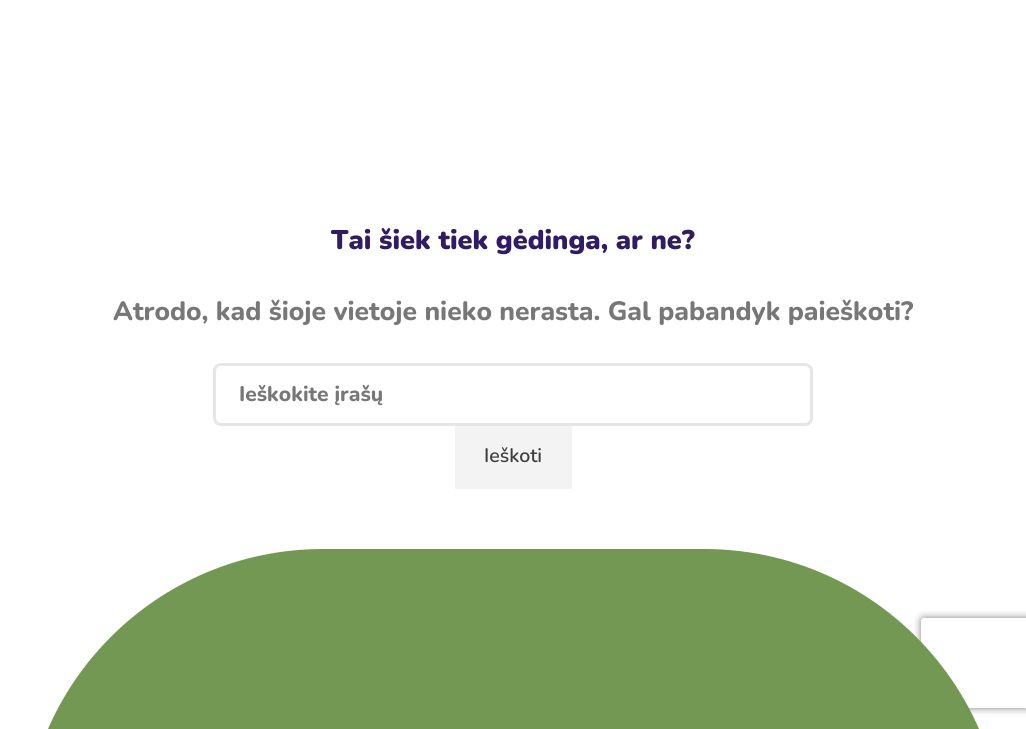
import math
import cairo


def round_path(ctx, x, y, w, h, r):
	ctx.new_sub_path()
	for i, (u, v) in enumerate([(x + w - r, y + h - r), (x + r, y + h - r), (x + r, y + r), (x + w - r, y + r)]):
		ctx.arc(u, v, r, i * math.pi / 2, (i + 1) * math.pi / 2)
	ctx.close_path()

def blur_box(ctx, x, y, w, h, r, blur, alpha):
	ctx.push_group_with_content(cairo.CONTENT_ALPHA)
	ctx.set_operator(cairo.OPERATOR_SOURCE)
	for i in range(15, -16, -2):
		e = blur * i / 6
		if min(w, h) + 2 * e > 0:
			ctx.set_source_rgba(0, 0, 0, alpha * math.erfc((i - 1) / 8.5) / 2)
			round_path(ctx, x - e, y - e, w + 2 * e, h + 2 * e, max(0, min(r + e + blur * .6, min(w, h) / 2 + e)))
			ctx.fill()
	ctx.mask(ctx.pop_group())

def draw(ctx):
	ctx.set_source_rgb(1, 1, 1)
	ctx.paint()
	ctx.select_font_face('Nunito Black')
	ctx.set_font_size(27)
	ctx.set_source_rgb(0.184, 0.11, 0.392)
	ctx.move_to(331, 249)
	ctx.show_text('Tai šiek tiek gėdinga, ar ne?')
	ctx.select_font_face('Nunito ExtraBold')
	ctx.set_font_size(26.4)
	ctx.set_source_rgb(0.467, 0.467, 0.467)
	ctx.move_to(113, 320)
	ctx.show_text('Atrodo, kad šioje vietoje nieko nerasta. Gal pabandyk paieškoti?')
	round_path(ctx, 214.5, 364.5, 597, 60, 6.5)
	ctx.set_source_rgb(0.902, 0.902, 0.902)
	ctx.set_line_width(3)
	ctx.stroke()
	ctx.set_font_size(21)
	ctx.set_source_rgb(0.467, 0.467, 0.467)
	ctx.move_to(239, 401)
	ctx.show_text('Ieškokite įrašų')
	ctx.set_source_rgb(0.953, 0.953, 0.953)
	ctx.rectangle(455, 426, 117, 63)
	ctx.fill()
	ctx.select_font_face('Nunito SemiBold')
	ctx.set_font_size(19.5)
	ctx.set_source_rgb(0.243, 0.243, 0.243)
	ctx.move_to(484, 462)
	ctx.show_text('Ieškoti')
	ctx.save()
	ctx.set_fill_rule(cairo.FILL_RULE_EVEN_ODD)
	ctx.new_path()
	ctx.move_to(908, 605)
	ctx.line_to(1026, 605)
	ctx.line_to(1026, 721)
	ctx.line_to(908, 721)
	ctx.close_path()
	ctx.move_to(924, 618)
	ctx.line_to(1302, 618)
	ctx.curve_to(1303.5, 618, 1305, 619.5, 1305, 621)
	ctx.line_to(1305, 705)
	ctx.curve_to(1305, 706.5, 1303.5, 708, 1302, 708)
	ctx.line_to(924, 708)
	ctx.curve_to(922.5, 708, 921, 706.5, 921, 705)
	ctx.line_to(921, 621)
	ctx.curve_to(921, 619.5, 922.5, 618, 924, 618)
	ctx.close_path()
	ctx.clip()
	ctx.set_source_rgb(0.502, 0.502, 0.502)
	blur_box(ctx, 921, 618, 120, 90, 3, 4, 1)
	ctx.restore()
	ctx.set_source_rgb(0.451, 0.596, 0.325)
	round_path(ctx, 23, 549, 981, 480, 300)
	ctx.fill()
	ctx.set_source_rgb(1, 1, 1)
	round_path(ctx, 1008, 651, 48, 60, 30)
	ctx.fill()


surface = cairo.ImageSurface(cairo.FORMAT_RGB24, 1026, 729)
ctx = cairo.Context(surface)
options = cairo.FontOptions()
options.set_hint_metrics(cairo.HINT_METRICS_OFF)
options.set_hint_style(cairo.HINT_STYLE_NONE)
ctx.set_font_options(options)
ctx.set_miter_limit(4)
draw(ctx)
surface.write_to_png('image.png')
